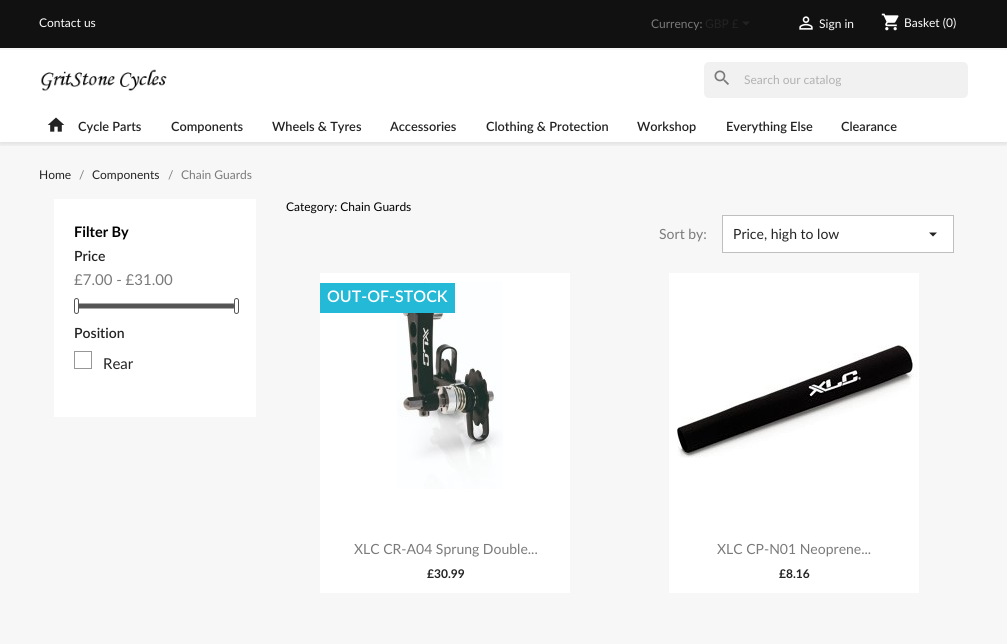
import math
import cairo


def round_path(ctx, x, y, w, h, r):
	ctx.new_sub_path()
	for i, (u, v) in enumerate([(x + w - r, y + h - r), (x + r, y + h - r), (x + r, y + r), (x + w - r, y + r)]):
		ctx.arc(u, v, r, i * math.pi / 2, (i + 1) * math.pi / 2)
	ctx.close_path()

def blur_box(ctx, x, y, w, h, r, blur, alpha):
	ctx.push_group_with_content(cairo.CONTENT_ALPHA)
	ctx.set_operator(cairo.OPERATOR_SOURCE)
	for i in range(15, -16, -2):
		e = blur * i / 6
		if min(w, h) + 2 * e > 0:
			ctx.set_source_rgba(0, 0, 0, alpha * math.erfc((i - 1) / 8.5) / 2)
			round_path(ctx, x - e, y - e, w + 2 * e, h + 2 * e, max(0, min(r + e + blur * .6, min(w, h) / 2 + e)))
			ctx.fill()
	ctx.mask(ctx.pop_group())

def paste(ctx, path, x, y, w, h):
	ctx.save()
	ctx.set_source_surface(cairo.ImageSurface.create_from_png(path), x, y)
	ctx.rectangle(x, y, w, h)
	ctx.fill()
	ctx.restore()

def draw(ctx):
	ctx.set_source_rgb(1, 1, 1)
	ctx.paint()
	ctx.set_source_rgb(0.965, 0.965, 0.965)
	ctx.rectangle(0, 142, 1007, 502)
	ctx.fill()
	ctx.save()
	ctx.rectangle(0, 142, 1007, 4)
	ctx.clip()
	ctx.set_source_rgb(0, 0, 0)
	blur_box(ctx, 0, 2, 1007, 142, 0, 2.5, 0.11)
	ctx.restore()
	ctx.set_source_rgb(0.067, 0.067, 0.067)
	ctx.rectangle(0, 0, 1007, 48)
	ctx.fill()
	ctx.set_source_rgb(0.965, 0.965, 0.965)
	ctx.rectangle(0, 48, 1007, 2)
	ctx.fill()
	ctx.select_font_face('Lato')
	ctx.set_font_size(12)
	ctx.set_source_rgb(1, 1, 1)
	ctx.move_to(39, 27)
	ctx.show_text('Contact us')
	ctx.set_source_rgb(0.478, 0.478, 0.478)
	ctx.move_to(651, 28)
	ctx.show_text('Currency:')
	ctx.set_source_rgb(0.137, 0.137, 0.137)
	ctx.move_to(705, 28)
	ctx.show_text('GBP £')
	ctx.new_path()
	ctx.move_to(742, 21.5)
	ctx.line_to(750, 21.5)
	ctx.line_to(746, 25.5)
	ctx.close_path()
	ctx.fill()
	paste(ctx, 'media/1.png', 799, 16, 14, 14)
	ctx.set_source_rgb(1, 1, 1)
	ctx.move_to(819, 28)
	ctx.show_text('Sign in')
	paste(ctx, 'media/2.png', 881, 13, 18, 18)
	ctx.move_to(904, 27)
	ctx.show_text('Basket (0)')
	paste(ctx, 'media/3.png', 41, 69, 126, 22)
	ctx.set_source_rgb(0.945, 0.945, 0.945)
	round_path(ctx, 704, 62, 264, 36, 5)
	ctx.fill()
	paste(ctx, 'media/4.png', 714, 70, 15, 15)
	ctx.set_source_rgb(0.694, 0.694, 0.694)
	ctx.move_to(744, 84)
	ctx.show_text('Search our catalog')
	paste(ctx, 'media/5.png', 47, 117, 18, 15)
	ctx.select_font_face('Lato SemiBold')
	ctx.set_font_size(12.75)
	ctx.set_source_rgb(0.137, 0.137, 0.137)
	for x, y, s in [
		(78, 131, 'Cycle Parts'),
		(171, 131, 'Components'),
		(272, 131, 'Wheels & Tyres'),
		(390, 131, 'Accessories'),
		(486, 131, 'Clothing & Protection'),
		(637, 131, 'Workshop'),
		(726, 131, 'Everything Else'),
		(841, 131, 'Clearance'),
	]:
		ctx.move_to(x, y)
		ctx.show_text(s)
	ctx.select_font_face('Lato')
	ctx.set_font_size(12)
	ctx.move_to(39, 179)
	ctx.show_text('Home')
	ctx.set_source_rgb(0.478, 0.478, 0.478)
	ctx.move_to(79, 179)
	ctx.show_text('/')
	ctx.set_source_rgb(0.137, 0.137, 0.137)
	ctx.move_to(92, 179)
	ctx.show_text('Components')
	ctx.set_source_rgb(0.478, 0.478, 0.478)
	ctx.move_to(168, 179)
	ctx.show_text('/')
	ctx.move_to(181, 179)
	ctx.show_text('Chain Guards')
	ctx.set_source_rgb(1, 1, 1)
	ctx.rectangle(54, 199, 202, 218)
	ctx.fill()
	ctx.select_font_face('Lato', cairo.FONT_SLANT_NORMAL, cairo.FONT_WEIGHT_BOLD)
	ctx.set_font_size(14.5)
	ctx.set_source_rgb(0, 0, 0)
	ctx.move_to(74, 237)
	ctx.show_text('Filter By')
	ctx.select_font_face('Lato SemiBold')
	ctx.set_font_size(14)
	ctx.set_source_rgb(0.137, 0.137, 0.137)
	ctx.move_to(74, 261)
	ctx.show_text('Price')
	ctx.select_font_face('Lato')
	ctx.set_font_size(15)
	ctx.set_source_rgb(0.478, 0.478, 0.478)
	ctx.move_to(74, 285)
	ctx.show_text('£7.00 - £31.00')
	round_path(ctx, 74.5, 303.5, 161, 5, 2.5)
	ctx.set_source_rgb(0.667, 0.667, 0.667)
	ctx.set_line_width(1)
	ctx.stroke()
	ctx.set_source_rgb(0.333, 0.333, 0.333)
	round_path(ctx, 75, 304, 160, 4, 2)
	ctx.fill()
	ctx.set_source_rgb(1, 1, 1)
	round_path(ctx, 74.5, 298.5, 4, 15, 2)
	ctx.fill_preserve()
	ctx.set_source_rgb(0.333, 0.333, 0.333)
	ctx.stroke()
	ctx.set_source_rgb(1, 1, 1)
	round_path(ctx, 234.5, 298.5, 4, 15, 2)
	ctx.fill_preserve()
	ctx.set_source_rgb(0.333, 0.333, 0.333)
	ctx.stroke()
	ctx.select_font_face('Lato SemiBold')
	ctx.set_font_size(14)
	ctx.set_source_rgb(0.137, 0.137, 0.137)
	ctx.move_to(74, 338)
	ctx.show_text('Position')
	ctx.rectangle(74.5, 351.5, 17, 17)
	ctx.set_source_rgb(0.592, 0.592, 0.592)
	ctx.stroke()
	ctx.select_font_face('Lato')
	ctx.set_font_size(15)
	ctx.set_source_rgb(0.137, 0.137, 0.137)
	ctx.move_to(103, 369)
	ctx.show_text('Rear')
	ctx.set_font_size(12)
	ctx.set_source_rgb(0, 0, 0)
	ctx.move_to(286, 211)
	ctx.show_text('Category: Chain Guards')
	ctx.set_font_size(14)
	ctx.set_source_rgb(0.478, 0.478, 0.478)
	ctx.move_to(659, 239)
	ctx.show_text('Sort by:')
	ctx.set_source_rgb(1, 1, 1)
	ctx.rectangle(722.5, 215.5, 231, 37)
	ctx.fill_preserve()
	ctx.set_source_rgb(0.749, 0.749, 0.749)
	ctx.stroke()
	ctx.set_source_rgb(0.137, 0.137, 0.137)
	ctx.move_to(733, 239)
	ctx.show_text('Price, high to low')
	ctx.new_path()
	ctx.move_to(929, 232.5)
	ctx.line_to(937, 232.5)
	ctx.line_to(933, 236.5)
	ctx.close_path()
	ctx.fill()
	ctx.set_source_rgb(1, 1, 1)
	ctx.rectangle(320, 273, 250, 320)
	ctx.fill()
	paste(ctx, 'media/6.png', 397, 281, 106, 208)
	ctx.set_source_rgb(0.141, 0.725, 0.843)
	ctx.rectangle(320, 283, 135, 30)
	ctx.fill()
	ctx.select_font_face('Lato SemiBold')
	ctx.set_font_size(16)
	ctx.set_source_rgb(1, 1, 1)
	ctx.move_to(327, 302)
	ctx.show_text('OUT-OF-STOCK')
	ctx.select_font_face('Lato')
	ctx.set_font_size(14)
	ctx.set_source_rgb(0.478, 0.478, 0.478)
	ctx.move_to(354, 554)
	ctx.show_text('XLC CR-A04 Sprung Double...')
	ctx.select_font_face('Lato', cairo.FONT_SLANT_NORMAL, cairo.FONT_WEIGHT_BOLD)
	ctx.set_font_size(12)
	ctx.set_source_rgb(0.137, 0.137, 0.137)
	ctx.move_to(427, 578)
	ctx.show_text('£30.99')
	ctx.set_source_rgb(1, 1, 1)
	ctx.rectangle(669, 273, 250, 320)
	ctx.fill()
	paste(ctx, 'media/7.png', 677, 345, 240, 113)
	ctx.select_font_face('Lato')
	ctx.set_font_size(14)
	ctx.set_source_rgb(0.478, 0.478, 0.478)
	ctx.move_to(717, 554)
	ctx.show_text('XLC CP-N01 Neoprene...')
	ctx.select_font_face('Lato', cairo.FONT_SLANT_NORMAL, cairo.FONT_WEIGHT_BOLD)
	ctx.set_font_size(12)
	ctx.set_source_rgb(0.137, 0.137, 0.137)
	ctx.move_to(779, 578)
	ctx.show_text('£8.16')


surface = cairo.ImageSurface(cairo.FORMAT_RGB24, 1007, 644)
ctx = cairo.Context(surface)
options = cairo.FontOptions()
options.set_hint_metrics(cairo.HINT_METRICS_OFF)
options.set_hint_style(cairo.HINT_STYLE_NONE)
ctx.set_font_options(options)
ctx.set_miter_limit(4)
draw(ctx)
surface.write_to_png('image.png')
